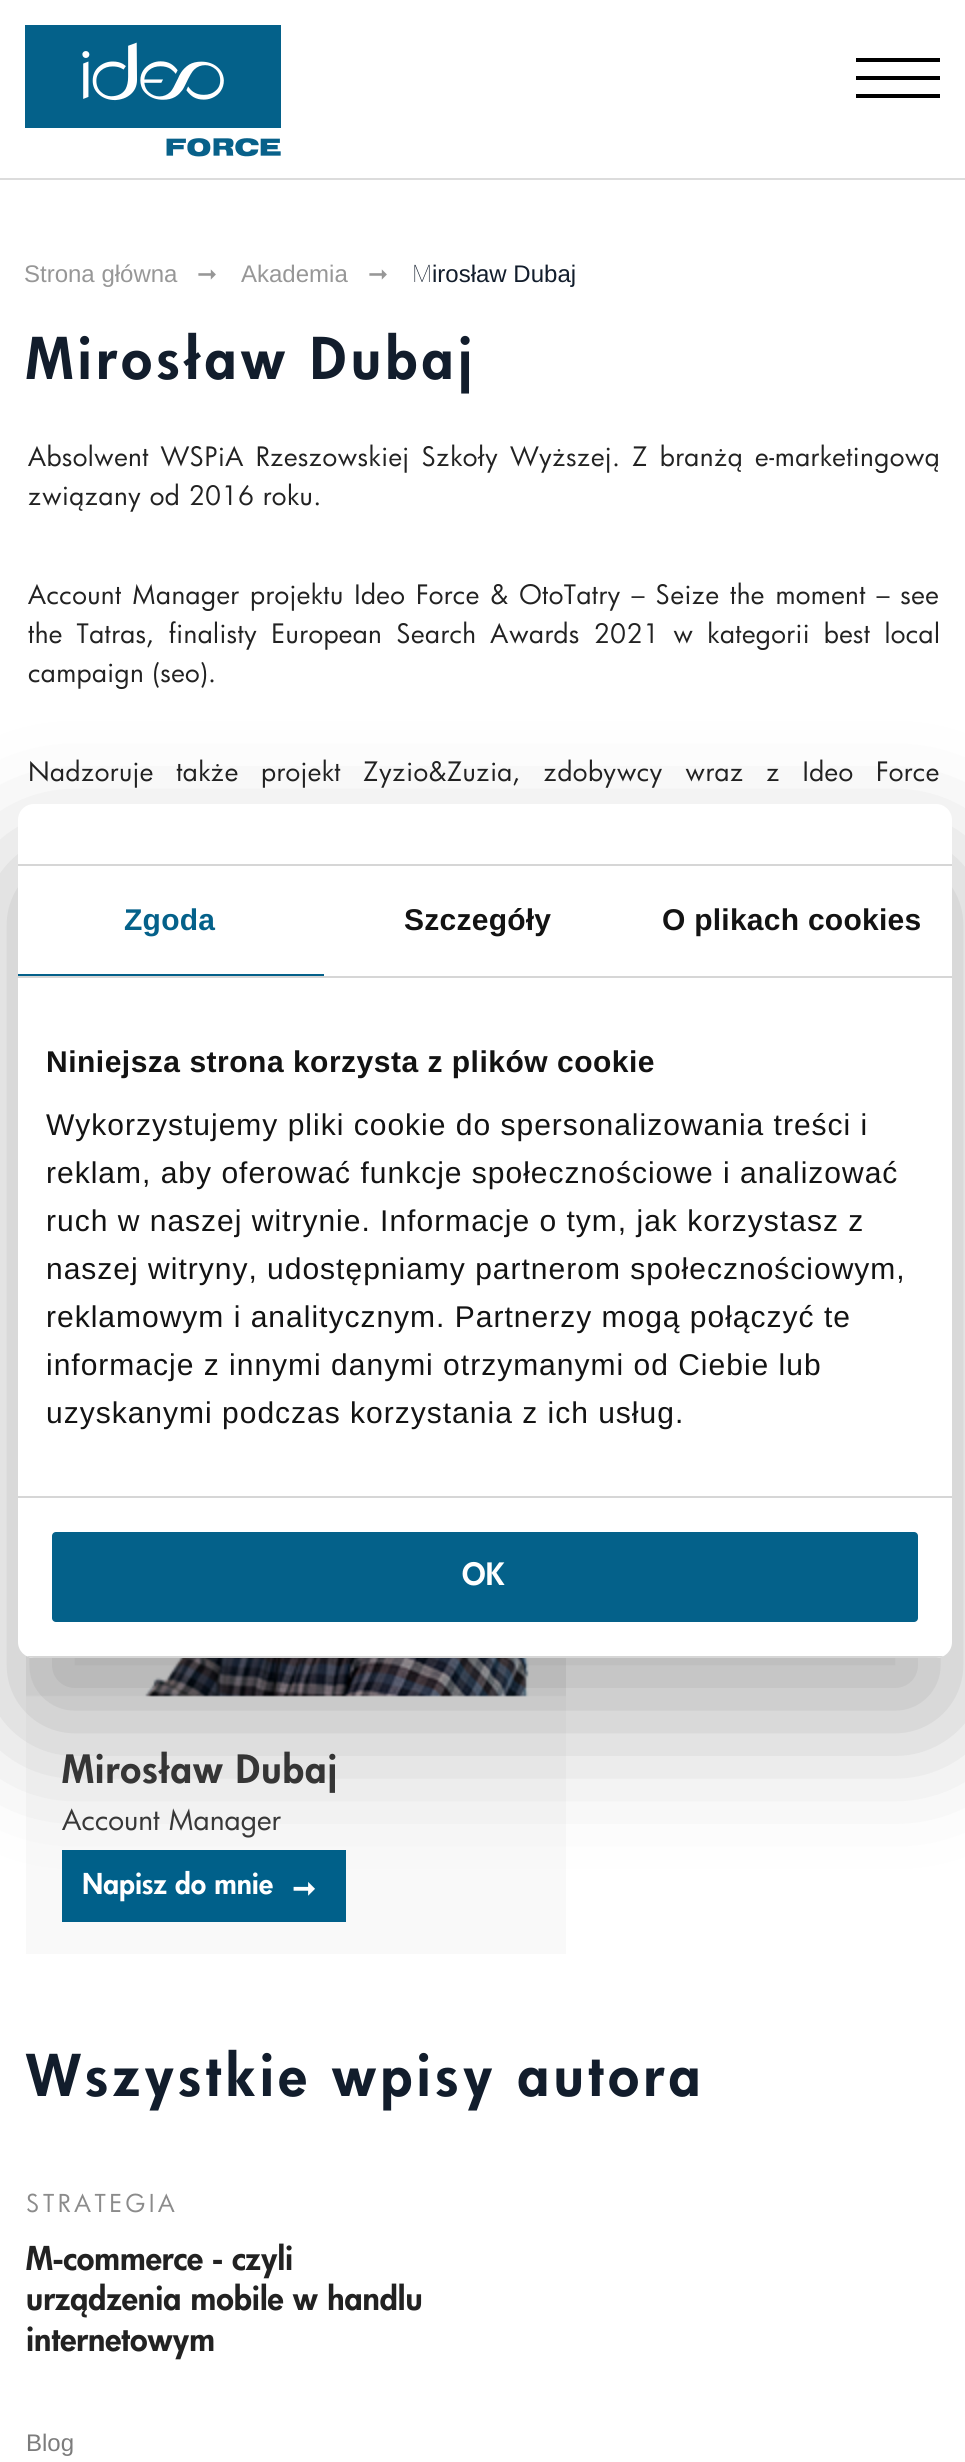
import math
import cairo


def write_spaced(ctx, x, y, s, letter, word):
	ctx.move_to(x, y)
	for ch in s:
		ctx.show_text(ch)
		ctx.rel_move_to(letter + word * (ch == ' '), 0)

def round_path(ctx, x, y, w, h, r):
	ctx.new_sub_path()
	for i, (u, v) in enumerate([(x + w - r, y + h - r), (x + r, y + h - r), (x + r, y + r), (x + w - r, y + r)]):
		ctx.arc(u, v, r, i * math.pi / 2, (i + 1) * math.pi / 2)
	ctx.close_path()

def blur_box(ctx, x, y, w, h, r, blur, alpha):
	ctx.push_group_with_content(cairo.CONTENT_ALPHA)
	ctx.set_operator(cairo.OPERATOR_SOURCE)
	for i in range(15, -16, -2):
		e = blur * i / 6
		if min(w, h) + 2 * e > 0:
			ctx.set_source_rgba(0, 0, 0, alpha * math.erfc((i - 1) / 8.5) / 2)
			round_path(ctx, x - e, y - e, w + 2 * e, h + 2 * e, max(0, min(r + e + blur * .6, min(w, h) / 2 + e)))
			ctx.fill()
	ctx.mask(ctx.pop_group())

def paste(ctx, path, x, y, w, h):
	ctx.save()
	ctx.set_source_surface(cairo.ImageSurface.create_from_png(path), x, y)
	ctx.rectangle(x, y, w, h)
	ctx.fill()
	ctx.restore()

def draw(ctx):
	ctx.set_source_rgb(1, 1, 1)
	ctx.paint()
	ctx.set_source_rgb(0.863, 0.863, 0.863)
	ctx.rectangle(0, 178, 965, 2)
	ctx.fill()
	paste(ctx, 'media/1.png', 25, 25, 256, 132)
	ctx.set_source_rgb(0, 0, 0)
	ctx.rectangle(856, 76, 84, 4)
	ctx.rectangle(856, 58, 84, 4)
	ctx.rectangle(856, 94, 84, 4)
	ctx.fill()
	ctx.select_font_face('Liberation Sans')
	ctx.set_font_size(24)
	ctx.set_source_rgb(0.592, 0.592, 0.592)
	ctx.move_to(24, 282)
	ctx.show_text('Strona główna')
	ctx.select_font_face('DejaVu Sans')
	ctx.move_to(197, 282)
	ctx.show_text('➞')
	ctx.select_font_face('Liberation Sans')
	ctx.move_to(241, 282)
	ctx.show_text('Akademia')
	ctx.select_font_face('DejaVu Sans')
	ctx.move_to(368, 282)
	ctx.show_text('➞')
	ctx.select_font_face('Noto Sans Thin')
	ctx.set_source_rgb(0.071, 0.114, 0.173)
	ctx.move_to(412, 282)
	ctx.show_text('M')
	ctx.select_font_face('Liberation Sans')
	ctx.move_to(432, 282)
	ctx.show_text('irosław Dubaj')
	ctx.select_font_face('Futura')
	ctx.set_font_size(56)
	write_spaced(ctx, 26, 379, 'Mirosław Dubaj', 4.6, 0)
	ctx.select_font_face('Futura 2')
	ctx.set_font_size(26)
	ctx.set_source_rgb(0.133, 0.133, 0.133)
	write_spaced(ctx, 28, 466, 'Absolwent WSPiA Rzeszowskiej Szkoły Wyższej. Z branżą e-marketingową', 0.4, 3.5)
	write_spaced(ctx, 28, 505, 'związany od 2016 roku.', 0.4, 0)
	write_spaced(ctx, 28, 604, 'Account Manager projektu Ideo Force & OtoTatry – Seize the moment – see', 0.4, 2.25)
	write_spaced(ctx, 28, 643, 'the Tatras, finalisty European Search Awards 2021 w kategorii best local', 0.4, 5.5)
	write_spaced(ctx, 28, 682, 'campaign (seo).', 0.4, 0)
	write_spaced(ctx, 28, 781, 'Nadzoruje także projekt Zyzio&Zuzia, zdobywcy wraz z Ideo Force', 0.4, 14)
	ctx.set_source_rgb(0.973, 0.973, 0.973)
	ctx.rectangle(26, 1695, 540, 259)
	ctx.fill()
	paste(ctx, 'media/2.png', 26, 1655, 540, 42)
	ctx.select_font_face('Futura')
	ctx.set_font_size(38)
	ctx.set_source_rgb(0.224, 0.224, 0.224)
	write_spaced(ctx, 62, 1783, 'Mirosław Dubaj', 1, 0)
	ctx.select_font_face('Futura 2')
	ctx.set_font_size(28)
	ctx.move_to(62, 1830)
	ctx.show_text('Account Manager')
	ctx.set_source_rgb(0, 0.376, 0.541)
	ctx.rectangle(62, 1850, 284, 72)
	ctx.fill()
	ctx.select_font_face('Futura')
	ctx.set_source_rgb(1, 1, 1)
	ctx.move_to(82, 1894)
	ctx.show_text('Napisz do mnie')
	ctx.select_font_face('DejaVu Sans', cairo.FONT_SLANT_NORMAL, cairo.FONT_WEIGHT_BOLD)
	ctx.move_to(292, 1898)
	ctx.show_text('➞')
	ctx.select_font_face('Futura')
	ctx.set_font_size(56)
	ctx.set_source_rgb(0.071, 0.114, 0.173)
	write_spaced(ctx, 26, 2096, 'Wszystkie wpisy autora', 4.6, 0)
	ctx.select_font_face('Futura 2')
	ctx.set_font_size(24)
	ctx.set_source_rgb(0.545, 0.545, 0.545)
	write_spaced(ctx, 26, 2212, 'STRATEGIA', 3.5, 0)
	ctx.select_font_face('Futura')
	ctx.set_font_size(32)
	ctx.set_source_rgb(0.133, 0.133, 0.133)
	for x, y, s in [
		(26, 2270, 'M-commerce - czyli'),
		(26, 2310, 'urządzenia mobile w handlu'),
		(26, 2351, 'internetowym'),
	]:
		ctx.move_to(x, y)
		ctx.show_text(s)
	ctx.select_font_face('Liberation Sans')
	ctx.set_font_size(24)
	ctx.set_source_rgb(0.486, 0.486, 0.486)
	ctx.move_to(26, 2451)
	ctx.show_text('Blog')
	ctx.set_source_rgb(0, 0, 0)
	blur_box(ctx, 18, 868, 934, 854, 16, 68, 0.3)
	ctx.set_source_rgb(1, 1, 1)
	round_path(ctx, 18, 804, 934, 854, 16)
	ctx.fill()
	ctx.set_source_rgb(0.839, 0.839, 0.839)
	ctx.rectangle(18, 864, 934, 2)
	ctx.rectangle(18, 976, 934, 2)
	ctx.fill()
	ctx.set_source_rgb(0.016, 0.38, 0.541)
	ctx.rectangle(18, 974, 306, 2)
	ctx.fill()
	ctx.select_font_face('Liberation Sans', cairo.FONT_SLANT_NORMAL, cairo.FONT_WEIGHT_BOLD)
	ctx.set_font_size(30)
	write_spaced(ctx, 124, 930, 'Zgoda', 0.25, 0)
	ctx.set_source_rgb(0.078, 0.078, 0.078)
	write_spaced(ctx, 404, 930, 'Szczegóły', 0.25, 0)
	write_spaced(ctx, 662, 930, 'O plikach cookies', 0.25, 0)
	ctx.set_source_rgb(0.839, 0.839, 0.839)
	ctx.rectangle(18, 1496, 934, 2)
	ctx.fill()
	ctx.set_source_rgb(0.078, 0.078, 0.078)
	write_spaced(ctx, 46, 1072, 'Niniejsza strona korzysta z plików cookie', 0.5, 0)
	ctx.select_font_face('Liberation Sans')
	for x, y, s in [
		(46, 1135, 'Wykorzystujemy pliki cookie do spersonalizowania treści i'),
		(46, 1183, 'reklam, aby oferować funkcje społecznościowe i analizować'),
		(46, 1231, 'ruch w naszej witrynie. Informacje o tym, jak korzystasz z'),
		(46, 1279, 'naszej witryny, udostępniamy partnerom społecznościowym,'),
		(46, 1327, 'reklamowym i analitycznym. Partnerzy mogą połączyć te'),
		(46, 1375, 'informacje z innymi danymi otrzymanymi od Ciebie lub'),
		(46, 1423, 'uzyskanymi podczas korzystania z ich usług.'),
	]:
		write_spaced(ctx, x, y, s, 1, 0)
	ctx.save()
	round_path(ctx, 18, 804, 934, 854, 16)
	ctx.clip()
	ctx.set_source_rgb(0.839, 0.839, 0.839)
	ctx.rectangle(18, 1656, 934, 2)
	ctx.fill()
	ctx.restore()
	ctx.set_source_rgb(0.016, 0.38, 0.541)
	round_path(ctx, 50, 1530, 870, 94, 6)
	ctx.fill_preserve()
	ctx.set_source_rgb(1, 1, 1)
	ctx.set_line_width(4)
	ctx.stroke()
	ctx.select_font_face('Futura')
	ctx.move_to(462, 1585)
	ctx.show_text('OK')


surface = cairo.ImageSurface(cairo.FORMAT_RGB24, 965, 2462)
ctx = cairo.Context(surface)
options = cairo.FontOptions()
options.set_hint_metrics(cairo.HINT_METRICS_OFF)
options.set_hint_style(cairo.HINT_STYLE_NONE)
ctx.set_font_options(options)
ctx.set_miter_limit(4)
draw(ctx)
surface.write_to_png('image.png')
